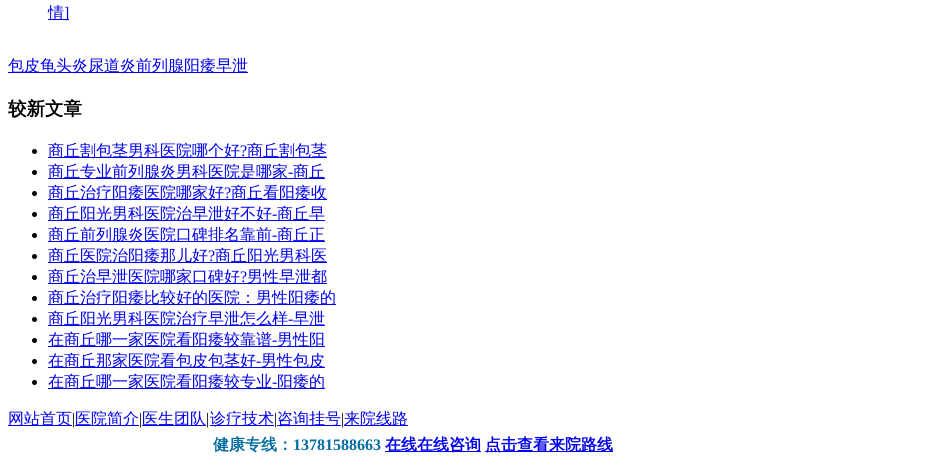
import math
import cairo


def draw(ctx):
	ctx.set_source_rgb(1, 1, 1)
	ctx.paint()
	ctx.set_source_rgb(0, 0, 0.933)
	ctx.rectangle(48, 19, 21, 1)
	ctx.fill()
	ctx.select_font_face('WenQuanYi Zen Hei Medium')
	ctx.set_font_size(16)
	ctx.move_to(48, 18)
	ctx.show_text('情')
	ctx.select_font_face('Liberation Serif')
	ctx.move_to(64, 18)
	ctx.show_text(']')
	ctx.rectangle(8, 72, 240, 1)
	ctx.fill()
	ctx.select_font_face('WenQuanYi Zen Hei Medium')
	ctx.move_to(8, 71)
	ctx.show_text('包皮龟头炎尿道炎前列腺阳痿早泄')
	ctx.select_font_face('WenQuanYi Zen Hei', cairo.FONT_SLANT_NORMAL, cairo.FONT_WEIGHT_BOLD)
	ctx.set_font_size(18.5)
	ctx.set_source_rgb(0, 0, 0)
	ctx.move_to(8, 115)
	ctx.show_text('较新文章')
	ctx.new_path()
	ctx.arc(34.5, 151.5, 2.5, 0, 2 * math.pi)
	ctx.fill()
	ctx.set_source_rgb(0, 0, 0.933)
	ctx.rectangle(48, 157, 279, 1)
	ctx.fill()
	ctx.select_font_face('WenQuanYi Zen Hei Medium')
	ctx.set_font_size(16)
	ctx.move_to(48, 156)
	ctx.show_text('商丘割包茎男科医院哪个好')
	ctx.select_font_face('Liberation Serif')
	ctx.move_to(240, 156)
	ctx.show_text('?')
	ctx.select_font_face('WenQuanYi Zen Hei Medium')
	ctx.move_to(247, 156)
	ctx.show_text('商丘割包茎')
	ctx.set_source_rgb(0, 0, 0)
	ctx.new_path()
	ctx.arc(34.5, 172.5, 2.5, 0, 2 * math.pi)
	ctx.fill()
	ctx.set_source_rgb(0, 0, 0.933)
	ctx.rectangle(48, 178, 277, 1)
	ctx.fill()
	ctx.move_to(48, 177)
	ctx.show_text('商丘专业前列腺炎男科医院是哪家')
	ctx.select_font_face('Liberation Serif')
	ctx.move_to(288, 177)
	ctx.show_text('-')
	ctx.select_font_face('WenQuanYi Zen Hei Medium')
	ctx.move_to(293, 177)
	ctx.show_text('商丘')
	ctx.set_source_rgb(0, 0, 0)
	ctx.new_path()
	ctx.arc(34.5, 193.5, 2.5, 0, 2 * math.pi)
	ctx.fill()
	ctx.set_source_rgb(0, 0, 0.933)
	ctx.rectangle(48, 199, 279, 1)
	ctx.fill()
	ctx.move_to(48, 198)
	ctx.show_text('商丘治疗阳痿医院哪家好')
	ctx.select_font_face('Liberation Serif')
	ctx.move_to(224, 198)
	ctx.show_text('?')
	ctx.select_font_face('WenQuanYi Zen Hei Medium')
	ctx.move_to(231, 198)
	ctx.show_text('商丘看阳痿收')
	ctx.set_source_rgb(0, 0, 0)
	ctx.new_path()
	ctx.arc(34.5, 214.5, 2.5, 0, 2 * math.pi)
	ctx.fill()
	ctx.set_source_rgb(0, 0, 0.933)
	ctx.rectangle(48, 220, 277, 1)
	ctx.fill()
	ctx.move_to(48, 219)
	ctx.show_text('商丘阳光男科医院治早泄好不好')
	ctx.select_font_face('Liberation Serif')
	ctx.move_to(272, 219)
	ctx.show_text('-')
	ctx.select_font_face('WenQuanYi Zen Hei Medium')
	ctx.move_to(277, 219)
	ctx.show_text('商丘早')
	ctx.set_source_rgb(0, 0, 0)
	ctx.new_path()
	ctx.arc(34.5, 235.5, 2.5, 0, 2 * math.pi)
	ctx.fill()
	ctx.set_source_rgb(0, 0, 0.933)
	ctx.rectangle(48, 241, 277, 1)
	ctx.fill()
	ctx.move_to(48, 240)
	ctx.show_text('商丘前列腺炎医院口碑排名靠前')
	ctx.select_font_face('Liberation Serif')
	ctx.move_to(272, 240)
	ctx.show_text('-')
	ctx.select_font_face('WenQuanYi Zen Hei Medium')
	ctx.move_to(277, 240)
	ctx.show_text('商丘正')
	ctx.set_source_rgb(0, 0, 0)
	ctx.new_path()
	ctx.arc(34.5, 256.5, 2.5, 0, 2 * math.pi)
	ctx.fill()
	ctx.set_source_rgb(0, 0, 0.933)
	ctx.rectangle(48, 262, 279, 1)
	ctx.fill()
	ctx.move_to(48, 261)
	ctx.show_text('商丘医院治阳痿那儿好')
	ctx.select_font_face('Liberation Serif')
	ctx.move_to(208, 261)
	ctx.show_text('?')
	ctx.select_font_face('WenQuanYi Zen Hei Medium')
	ctx.move_to(215, 261)
	ctx.show_text('商丘阳光男科医')
	ctx.set_source_rgb(0, 0, 0)
	ctx.new_path()
	ctx.arc(34.5, 277.5, 2.5, 0, 2 * math.pi)
	ctx.fill()
	ctx.set_source_rgb(0, 0, 0.933)
	ctx.rectangle(48, 283, 279, 1)
	ctx.fill()
	ctx.move_to(48, 282)
	ctx.show_text('商丘治早泄医院哪家口碑好')
	ctx.select_font_face('Liberation Serif')
	ctx.move_to(240, 282)
	ctx.show_text('?')
	ctx.select_font_face('WenQuanYi Zen Hei Medium')
	ctx.move_to(247, 282)
	ctx.show_text('男性早泄都')
	ctx.set_source_rgb(0, 0, 0)
	ctx.new_path()
	ctx.arc(34.5, 298.5, 2.5, 0, 2 * math.pi)
	ctx.fill()
	ctx.set_source_rgb(0, 0, 0.933)
	ctx.rectangle(48, 304, 288, 1)
	ctx.fill()
	ctx.move_to(48, 303)
	ctx.show_text('商丘治疗阳痿比较好的医院：男性阳痿的')
	ctx.set_source_rgb(0, 0, 0)
	ctx.new_path()
	ctx.arc(34.5, 319.5, 2.5, 0, 2 * math.pi)
	ctx.fill()
	ctx.set_source_rgb(0, 0, 0.933)
	ctx.rectangle(48, 325, 277, 1)
	ctx.fill()
	ctx.move_to(48, 324)
	ctx.show_text('商丘阳光男科医院治疗早泄怎么样')
	ctx.select_font_face('Liberation Serif')
	ctx.move_to(288, 324)
	ctx.show_text('-')
	ctx.select_font_face('WenQuanYi Zen Hei Medium')
	ctx.move_to(293, 324)
	ctx.show_text('早泄')
	ctx.set_source_rgb(0, 0, 0)
	ctx.new_path()
	ctx.arc(34.5, 340.5, 2.5, 0, 2 * math.pi)
	ctx.fill()
	ctx.set_source_rgb(0, 0, 0.933)
	ctx.rectangle(48, 346, 277, 1)
	ctx.fill()
	ctx.move_to(48, 345)
	ctx.show_text('在商丘哪一家医院看阳痿较靠谱')
	ctx.select_font_face('Liberation Serif')
	ctx.move_to(272, 345)
	ctx.show_text('-')
	ctx.select_font_face('WenQuanYi Zen Hei Medium')
	ctx.move_to(277, 345)
	ctx.show_text('男性阳')
	ctx.set_source_rgb(0, 0, 0)
	ctx.new_path()
	ctx.arc(34.5, 361.5, 2.5, 0, 2 * math.pi)
	ctx.fill()
	ctx.set_source_rgb(0, 0, 0.933)
	ctx.rectangle(48, 367, 277, 1)
	ctx.fill()
	ctx.move_to(48, 366)
	ctx.show_text('在商丘那家医院看包皮包茎好')
	ctx.select_font_face('Liberation Serif')
	ctx.move_to(256, 366)
	ctx.show_text('-')
	ctx.select_font_face('WenQuanYi Zen Hei Medium')
	ctx.move_to(261, 366)
	ctx.show_text('男性包皮')
	ctx.set_source_rgb(0, 0, 0)
	ctx.new_path()
	ctx.arc(34.5, 382.5, 2.5, 0, 2 * math.pi)
	ctx.fill()
	ctx.set_source_rgb(0, 0, 0.933)
	ctx.rectangle(48, 388, 277, 1)
	ctx.fill()
	ctx.move_to(48, 387)
	ctx.show_text('在商丘哪一家医院看阳痿较专业')
	ctx.select_font_face('Liberation Serif')
	ctx.move_to(272, 387)
	ctx.show_text('-')
	ctx.select_font_face('WenQuanYi Zen Hei Medium')
	ctx.move_to(277, 387)
	ctx.show_text('阳痿的')
	ctx.rectangle(8, 425, 64, 1)
	ctx.fill()
	ctx.move_to(8, 424)
	ctx.show_text('网站首页')
	ctx.select_font_face('Liberation Serif')
	ctx.set_source_rgb(0, 0, 0)
	ctx.move_to(72, 424)
	ctx.show_text('|')
	ctx.set_source_rgb(0, 0, 0.933)
	ctx.rectangle(75, 425, 64, 1)
	ctx.fill()
	ctx.select_font_face('WenQuanYi Zen Hei Medium')
	ctx.move_to(75, 424)
	ctx.show_text('医院简介')
	ctx.select_font_face('Liberation Serif')
	ctx.set_source_rgb(0, 0, 0)
	ctx.move_to(139, 424)
	ctx.show_text('|')
	ctx.set_source_rgb(0, 0, 0.933)
	ctx.rectangle(142, 425, 64, 1)
	ctx.fill()
	ctx.select_font_face('WenQuanYi Zen Hei Medium')
	ctx.move_to(142, 424)
	ctx.show_text('医生团队')
	ctx.select_font_face('Liberation Serif')
	ctx.set_source_rgb(0, 0, 0)
	ctx.move_to(206, 424)
	ctx.show_text('|')
	ctx.set_source_rgb(0, 0, 0.933)
	ctx.rectangle(210, 425, 64, 1)
	ctx.fill()
	ctx.select_font_face('WenQuanYi Zen Hei Medium')
	ctx.move_to(210, 424)
	ctx.show_text('诊疗技术')
	ctx.select_font_face('Liberation Serif')
	ctx.set_source_rgb(0, 0, 0)
	ctx.move_to(274, 424)
	ctx.show_text('|')
	ctx.set_source_rgb(0, 0, 0.933)
	ctx.rectangle(277, 425, 64, 1)
	ctx.fill()
	ctx.select_font_face('WenQuanYi Zen Hei Medium')
	ctx.move_to(277, 424)
	ctx.show_text('咨询挂号')
	ctx.select_font_face('Liberation Serif')
	ctx.set_source_rgb(0, 0, 0)
	ctx.move_to(341, 424)
	ctx.show_text('|')
	ctx.set_source_rgb(0, 0, 0.933)
	ctx.rectangle(344, 425, 64, 1)
	ctx.fill()
	ctx.select_font_face('WenQuanYi Zen Hei Medium')
	ctx.move_to(344, 424)
	ctx.show_text('来院线路')
	ctx.select_font_face('WenQuanYi Zen Hei', cairo.FONT_SLANT_NORMAL, cairo.FONT_WEIGHT_BOLD)
	ctx.set_source_rgb(0.012, 0.427, 0.631)
	ctx.move_to(213, 450)
	ctx.show_text('健康专线：')
	ctx.select_font_face('Liberation Serif', cairo.FONT_SLANT_NORMAL, cairo.FONT_WEIGHT_BOLD)
	ctx.move_to(293, 450)
	ctx.show_text('13781588663')
	ctx.set_source_rgb(0, 0, 0.933)
	ctx.rectangle(385, 451, 96, 1)
	ctx.fill()
	ctx.select_font_face('WenQuanYi Zen Hei', cairo.FONT_SLANT_NORMAL, cairo.FONT_WEIGHT_BOLD)
	ctx.move_to(385, 450)
	ctx.show_text('在线在线咨询')
	ctx.rectangle(485, 451, 128, 1)
	ctx.fill()
	ctx.move_to(485, 450)
	ctx.show_text('点击查看来院路线')


surface = cairo.ImageSurface(cairo.FORMAT_RGB24, 947, 469)
ctx = cairo.Context(surface)
options = cairo.FontOptions()
options.set_hint_metrics(cairo.HINT_METRICS_OFF)
options.set_hint_style(cairo.HINT_STYLE_NONE)
ctx.set_font_options(options)
ctx.set_miter_limit(4)
draw(ctx)
surface.write_to_png('image.png')
